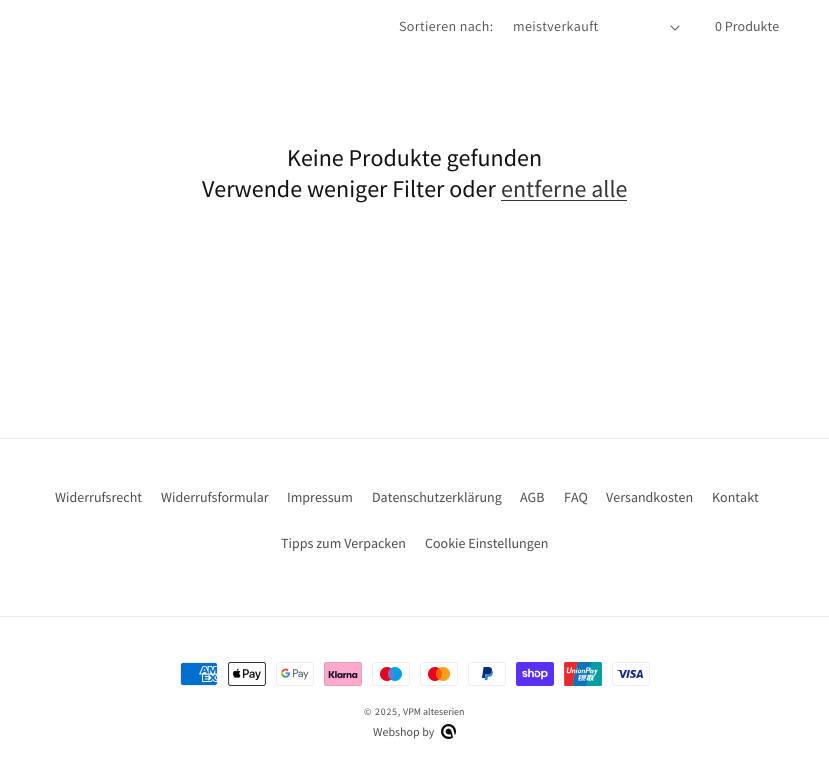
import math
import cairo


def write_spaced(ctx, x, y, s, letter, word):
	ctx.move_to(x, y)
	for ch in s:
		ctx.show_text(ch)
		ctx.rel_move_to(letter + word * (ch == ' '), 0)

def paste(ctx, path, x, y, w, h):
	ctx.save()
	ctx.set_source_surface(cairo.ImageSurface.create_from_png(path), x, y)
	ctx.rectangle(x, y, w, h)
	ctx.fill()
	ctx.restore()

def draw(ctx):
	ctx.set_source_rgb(1, 1, 1)
	ctx.paint()
	ctx.select_font_face('Assistant')
	ctx.set_font_size(14)
	ctx.set_source_rgb(0.302, 0.302, 0.302)
	write_spaced(ctx, 399, 31, 'Sortieren nach:', 0.4, 0)
	write_spaced(ctx, 513, 31, 'meistverkauft', 0.4, 0)
	paste(ctx, 'media/1.png', 670, 25, 10, 6)
	ctx.select_font_face('Source Sans Pro')
	ctx.set_source_rgb(0.349, 0.349, 0.349)
	ctx.move_to(715, 31)
	ctx.show_text('0 Produkte')
	ctx.set_font_size(24)
	ctx.set_source_rgb(0.071, 0.071, 0.071)
	ctx.move_to(287, 166)
	ctx.show_text('Keine Produkte gefunden')
	ctx.move_to(202, 197)
	ctx.show_text('Verwende weniger Filter oder')
	ctx.set_source_rgb(0.212, 0.212, 0.212)
	ctx.move_to(501, 197)
	ctx.show_text('entferne alle')
	ctx.rectangle(501, 200, 126, 1)
	ctx.fill()
	ctx.set_source_rgb(0.925, 0.925, 0.925)
	ctx.rectangle(0, 438, 829, 1)
	ctx.fill()
	ctx.set_font_size(14)
	ctx.set_source_rgb(0.302, 0.302, 0.302)
	for x, y, s in [
		(55, 502, 'Widerrufsrecht'),
		(161, 502, 'Widerrufsformular'),
		(287, 502, 'Impressum'),
		(372, 502, 'Datenschutzerklärung'),
		(520, 502, 'AGB'),
		(564, 502, 'FAQ'),
		(606, 502, 'Versandkosten'),
		(712, 502, 'Kontakt'),
		(281, 548, 'Tipps zum Verpacken'),
		(425, 548, 'Cookie Einstellungen'),
	]:
		ctx.move_to(x, y)
		ctx.show_text(s)
	ctx.set_source_rgb(0.925, 0.925, 0.925)
	ctx.rectangle(0, 616, 829, 1)
	ctx.fill()
	paste(ctx, 'media/2.png', 180, 662, 38, 24)
	paste(ctx, 'media/3.png', 228, 662, 38, 24)
	paste(ctx, 'media/4.png', 276, 662, 38, 24)
	paste(ctx, 'media/5.png', 324, 662, 38, 24)
	paste(ctx, 'media/6.png', 372, 662, 38, 24)
	paste(ctx, 'media/7.png', 420, 662, 38, 24)
	paste(ctx, 'media/8.png', 468, 662, 38, 24)
	paste(ctx, 'media/9.png', 516, 662, 38, 24)
	paste(ctx, 'media/10.png', 564, 662, 38, 24)
	paste(ctx, 'media/11.png', 612, 662, 38, 24)
	ctx.set_font_size(10)
	ctx.set_source_rgb(0.302, 0.302, 0.302)
	write_spaced(ctx, 364, 715, '© 2025,', 0.75, 0)
	ctx.move_to(403, 715)
	ctx.show_text('VPM alteserien')
	ctx.set_font_size(12)
	ctx.move_to(373, 736)
	ctx.show_text('Webshop by')
	paste(ctx, 'media/12.png', 441, 724, 15, 15)


surface = cairo.ImageSurface(cairo.FORMAT_RGB24, 829, 779)
ctx = cairo.Context(surface)
options = cairo.FontOptions()
options.set_hint_metrics(cairo.HINT_METRICS_OFF)
options.set_hint_style(cairo.HINT_STYLE_NONE)
ctx.set_font_options(options)
ctx.set_miter_limit(4)
draw(ctx)
surface.write_to_png('image.png')
